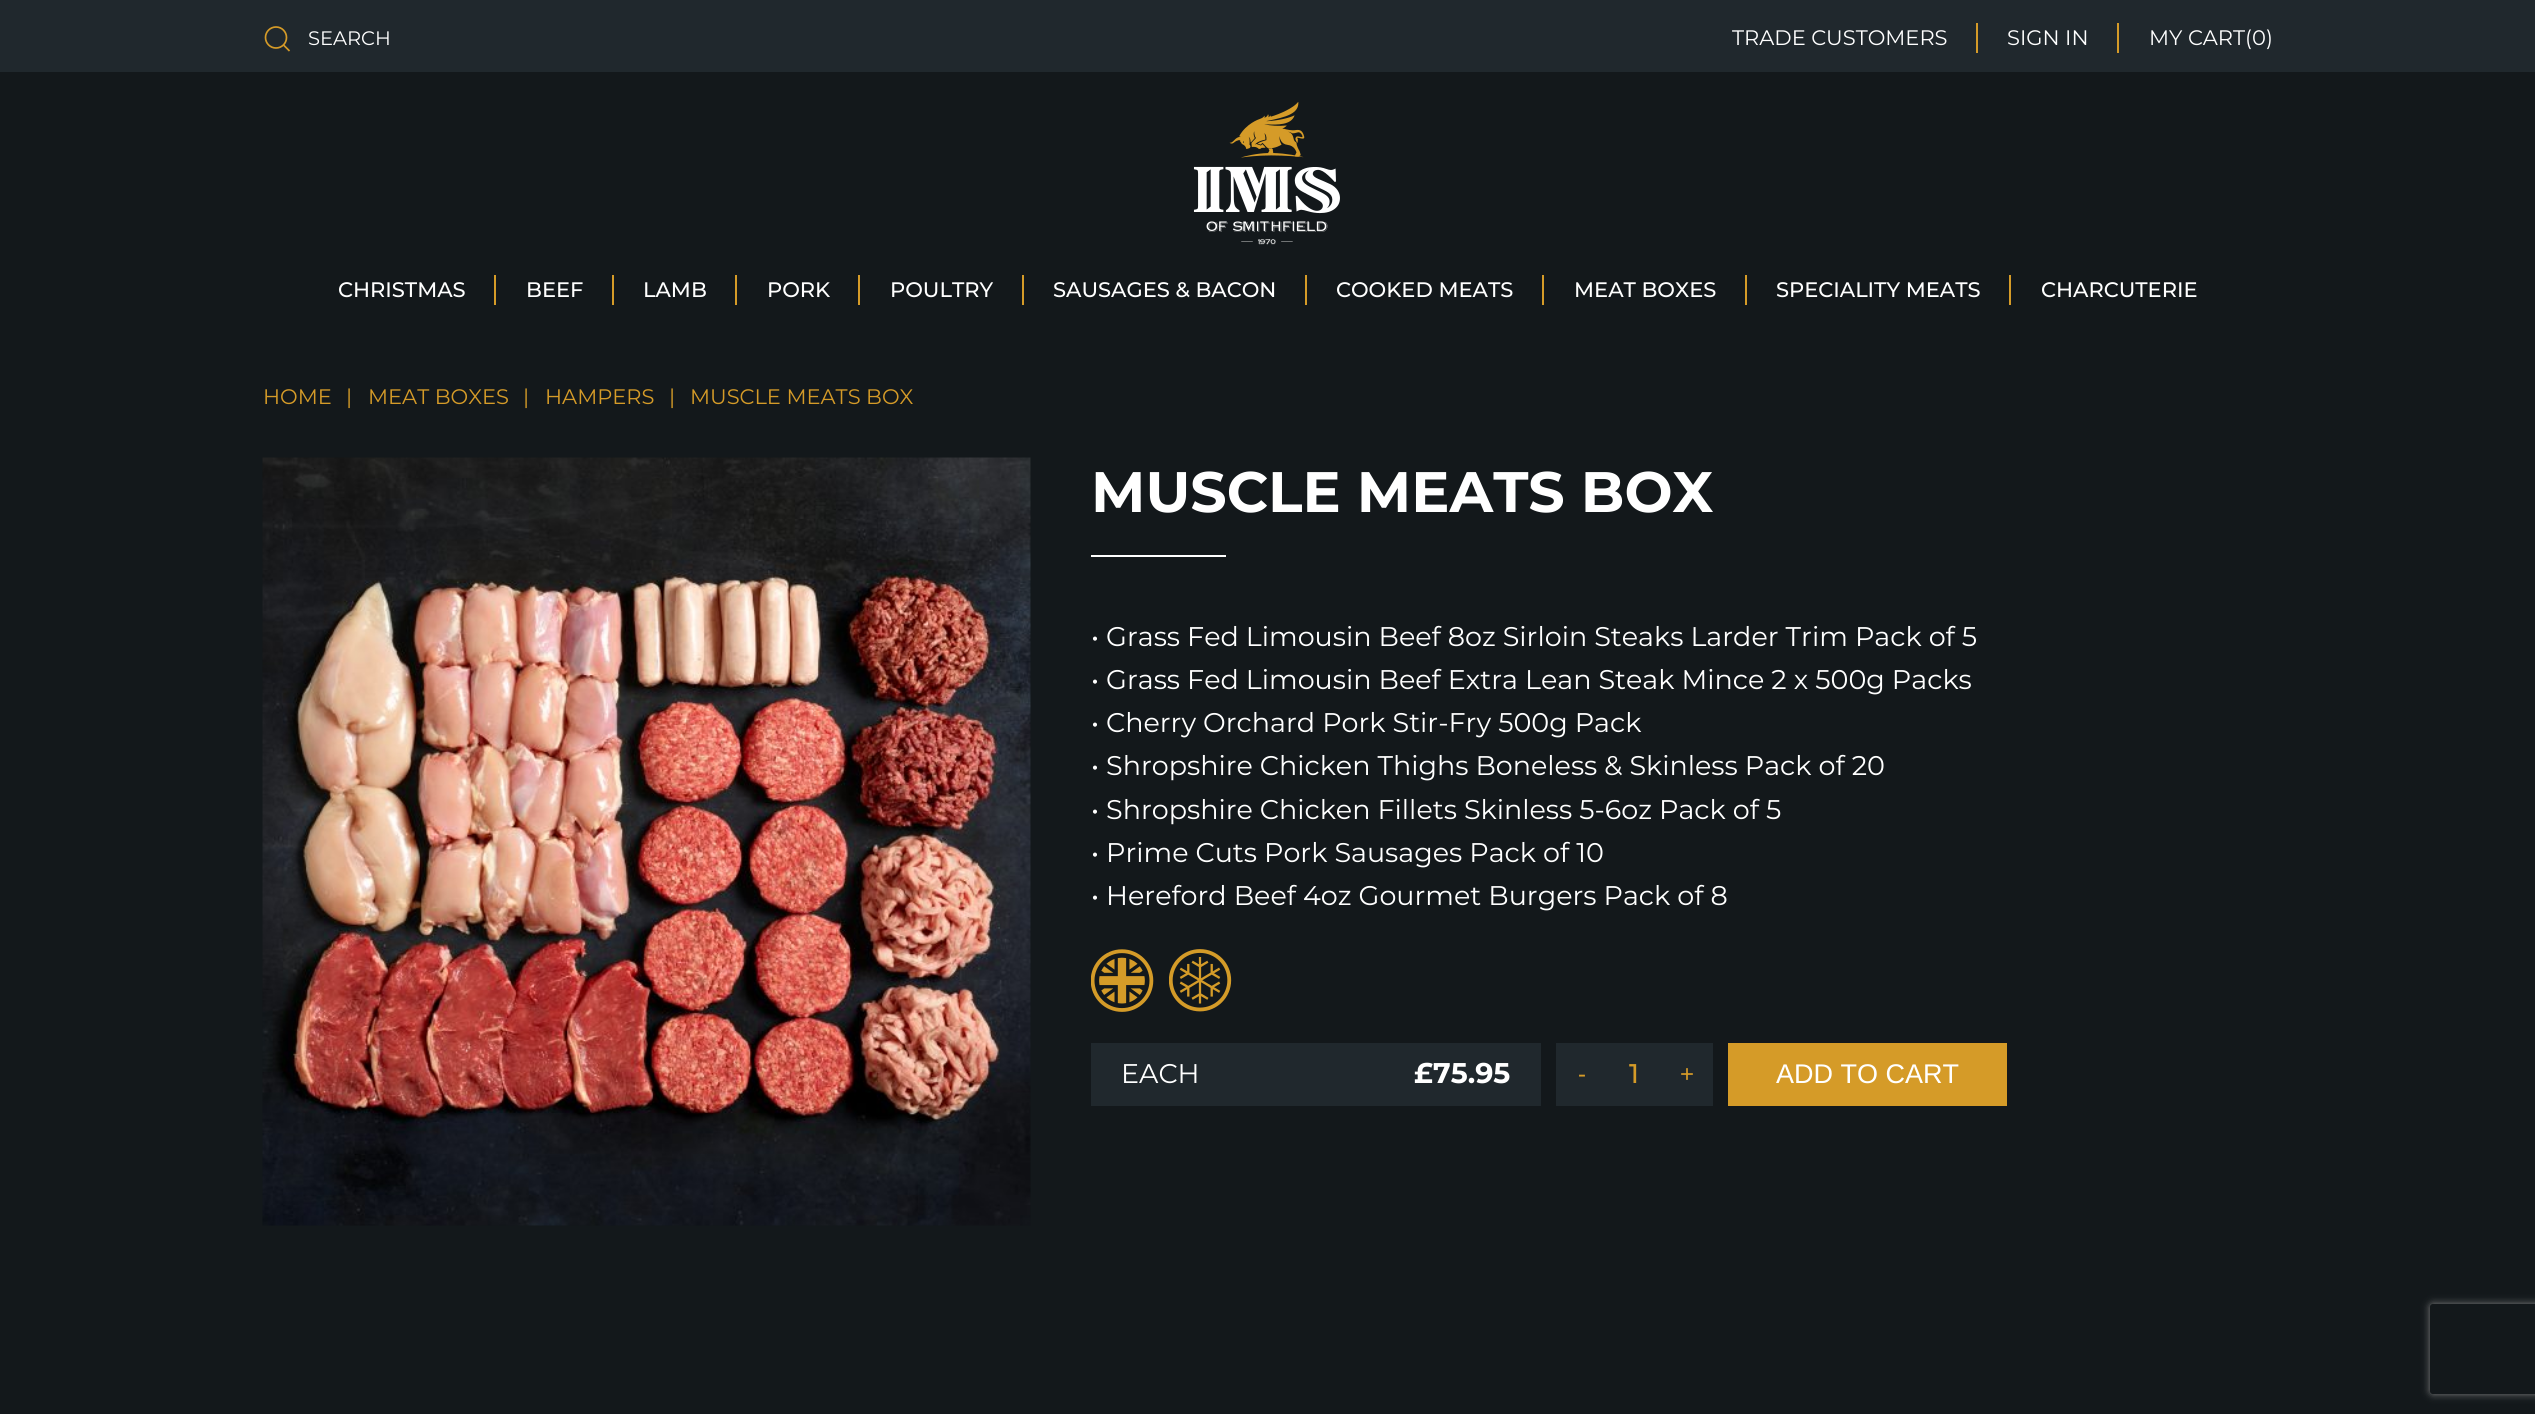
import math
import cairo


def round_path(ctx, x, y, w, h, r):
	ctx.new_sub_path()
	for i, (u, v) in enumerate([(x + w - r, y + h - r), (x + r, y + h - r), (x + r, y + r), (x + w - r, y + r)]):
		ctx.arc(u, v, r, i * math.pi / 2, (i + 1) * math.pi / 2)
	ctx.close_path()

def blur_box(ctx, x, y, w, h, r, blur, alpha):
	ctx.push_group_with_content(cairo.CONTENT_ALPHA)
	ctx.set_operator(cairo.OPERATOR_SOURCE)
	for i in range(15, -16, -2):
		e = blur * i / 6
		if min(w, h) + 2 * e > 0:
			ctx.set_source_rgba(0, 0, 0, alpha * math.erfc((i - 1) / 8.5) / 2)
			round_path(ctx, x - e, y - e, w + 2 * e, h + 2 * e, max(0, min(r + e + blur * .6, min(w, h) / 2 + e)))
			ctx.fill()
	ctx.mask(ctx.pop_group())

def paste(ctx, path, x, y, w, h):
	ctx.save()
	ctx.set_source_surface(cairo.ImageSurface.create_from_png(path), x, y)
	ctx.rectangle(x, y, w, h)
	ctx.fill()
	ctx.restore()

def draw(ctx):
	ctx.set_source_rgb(0.075, 0.094, 0.106)
	ctx.paint()
	ctx.set_source_rgb(0.125, 0.157, 0.176)
	ctx.rectangle(0, 0, 2535, 72)
	ctx.fill()
	ctx.arc(276, 37.5, 10.5, 0, 2 * math.pi)
	ctx.set_source_rgb(0.835, 0.608, 0.157)
	ctx.set_line_width(1.7)
	ctx.stroke()
	ctx.new_path()
	ctx.move_to(283.5, 45)
	ctx.line_to(289.5, 51)
	ctx.close_path()
	ctx.stroke()
	ctx.select_font_face('Montserrat')
	ctx.set_font_size(19.5)
	ctx.set_source_rgb(1, 1, 1)
	ctx.move_to(308, 45)
	ctx.show_text('SEARCH')
	ctx.set_font_size(21)
	ctx.move_to(1732, 45)
	ctx.show_text('TRADE CUSTOMERS')
	ctx.set_source_rgb(0.835, 0.608, 0.157)
	ctx.rectangle(1976, 23, 2, 30)
	ctx.fill()
	ctx.set_source_rgb(1, 1, 1)
	ctx.move_to(2007, 45)
	ctx.show_text('SIGN IN')
	ctx.set_source_rgb(0.835, 0.608, 0.157)
	ctx.rectangle(2117, 23, 2, 30)
	ctx.fill()
	ctx.set_source_rgb(1, 1, 1)
	ctx.move_to(2149, 45)
	ctx.show_text('MY CART(0)')
	paste(ctx, 'media/1.png', 1193, 102, 147, 143)
	ctx.select_font_face('Montserrat Medium')
	ctx.move_to(338, 297)
	ctx.show_text('CHRISTMAS')
	ctx.set_source_rgb(0.835, 0.608, 0.157)
	ctx.rectangle(494, 275, 2, 30)
	ctx.fill()
	ctx.set_source_rgb(1, 1, 1)
	ctx.move_to(526, 297)
	ctx.show_text('BEEF')
	ctx.set_source_rgb(0.835, 0.608, 0.157)
	ctx.rectangle(612, 275, 2, 30)
	ctx.fill()
	ctx.set_source_rgb(1, 1, 1)
	ctx.move_to(643, 297)
	ctx.show_text('LAMB')
	ctx.set_source_rgb(0.835, 0.608, 0.157)
	ctx.rectangle(735, 275, 2, 30)
	ctx.fill()
	ctx.set_source_rgb(1, 1, 1)
	ctx.move_to(767, 297)
	ctx.show_text('PORK')
	ctx.set_source_rgb(0.835, 0.608, 0.157)
	ctx.rectangle(858, 275, 2, 30)
	ctx.fill()
	ctx.set_source_rgb(1, 1, 1)
	ctx.move_to(890, 297)
	ctx.show_text('POULTRY')
	ctx.set_source_rgb(0.835, 0.608, 0.157)
	ctx.rectangle(1022, 275, 2, 30)
	ctx.fill()
	ctx.set_source_rgb(1, 1, 1)
	ctx.move_to(1053, 297)
	ctx.show_text('SAUSAGES & BACON')
	ctx.set_source_rgb(0.835, 0.608, 0.157)
	ctx.rectangle(1305, 275, 2, 30)
	ctx.fill()
	ctx.set_source_rgb(1, 1, 1)
	ctx.move_to(1336, 297)
	ctx.show_text('COOKED MEATS')
	ctx.set_source_rgb(0.835, 0.608, 0.157)
	ctx.rectangle(1542, 275, 2, 30)
	ctx.fill()
	ctx.set_source_rgb(1, 1, 1)
	ctx.move_to(1574, 297)
	ctx.show_text('MEAT BOXES')
	ctx.set_source_rgb(0.835, 0.608, 0.157)
	ctx.rectangle(1745, 275, 2, 30)
	ctx.fill()
	ctx.set_source_rgb(1, 1, 1)
	ctx.move_to(1776, 297)
	ctx.show_text('SPECIALITY MEATS')
	ctx.set_source_rgb(0.835, 0.608, 0.157)
	ctx.rectangle(2009, 275, 2, 30)
	ctx.fill()
	ctx.set_source_rgb(1, 1, 1)
	ctx.move_to(2041, 297)
	ctx.show_text('CHARCUTERIE')
	ctx.select_font_face('Montserrat')
	ctx.set_source_rgb(0.835, 0.608, 0.157)
	for x, y, s in [
		(263, 404, 'HOME'),
		(346, 404, '|'),
		(368, 404, 'MEAT BOXES'),
		(523, 404, '|'),
		(545, 404, 'HAMPERS'),
		(669, 404, '|'),
		(690, 404, 'MUSCLE MEATS BOX'),
	]:
		ctx.move_to(x, y)
		ctx.show_text(s)
	paste(ctx, 'media/2.png', 262, 457, 769, 769)
	ctx.select_font_face('Montserrat', cairo.FONT_SLANT_NORMAL, cairo.FONT_WEIGHT_BOLD)
	ctx.set_font_size(57)
	ctx.set_source_rgb(1, 1, 1)
	ctx.move_to(1091, 512)
	ctx.show_text('MUSCLE MEATS BOX')
	ctx.rectangle(1091, 555, 135, 2)
	ctx.fill()
	ctx.select_font_face('Montserrat')
	ctx.set_font_size(27)
	for x, y, s in [
		(1091, 646, '• Grass Fed Limousin Beef 8oz Sirloin Steaks Larder Trim Pack of 5'),
		(1091, 689, '• Grass Fed Limousin Beef Extra Lean Steak Mince 2 x 500g Packs'),
		(1091, 732, '• Cherry Orchard Pork Stir-Fry 500g Pack'),
		(1091, 775, '• Shropshire Chicken Thighs Boneless & Skinless Pack of 20'),
		(1091, 819, '• Shropshire Chicken Fillets Skinless 5-6oz Pack of 5'),
		(1091, 862, '• Prime Cuts Pork Sausages Pack of 10'),
		(1091, 905, '• Hereford Beef 4oz Gourmet Burgers Pack of 8'),
	]:
		ctx.move_to(x, y)
		ctx.show_text(s)
	paste(ctx, 'media/3.png', 1091, 949, 63, 63)
	paste(ctx, 'media/4.png', 1169, 949, 63, 63)
	ctx.set_source_rgb(0.125, 0.157, 0.176)
	ctx.rectangle(1091, 1043, 450, 63)
	ctx.fill()
	ctx.set_source_rgb(1, 1, 1)
	ctx.move_to(1121, 1083)
	ctx.show_text('EACH')
	ctx.select_font_face('Montserrat', cairo.FONT_SLANT_NORMAL, cairo.FONT_WEIGHT_BOLD)
	ctx.set_font_size(28.5)
	ctx.move_to(1414, 1083)
	ctx.show_text('£75.95')
	ctx.set_source_rgb(0.125, 0.157, 0.176)
	ctx.rectangle(1556, 1043, 157, 63)
	ctx.fill()
	ctx.select_font_face('Liberation Sans')
	ctx.set_font_size(24)
	ctx.set_source_rgb(0.835, 0.608, 0.157)
	ctx.move_to(1578, 1082)
	ctx.show_text('-')
	ctx.select_font_face('Montserrat Medium')
	ctx.set_font_size(27)
	ctx.move_to(1629, 1083)
	ctx.show_text('1')
	ctx.select_font_face('Liberation Sans')
	ctx.set_font_size(24)
	ctx.move_to(1680, 1082)
	ctx.show_text('+')
	ctx.rectangle(1728, 1043, 279, 63)
	ctx.fill()
	ctx.set_font_size(27)
	ctx.set_source_rgb(1, 1, 1)
	ctx.move_to(1776, 1083)
	ctx.show_text('ADD TO CART')
	ctx.save()
	ctx.set_fill_rule(cairo.FILL_RULE_EVEN_ODD)
	ctx.new_path()
	ctx.move_to(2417, 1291)
	ctx.line_to(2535, 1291)
	ctx.line_to(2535, 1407)
	ctx.line_to(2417, 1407)
	ctx.close_path()
	ctx.move_to(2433, 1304)
	ctx.line_to(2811, 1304)
	ctx.curve_to(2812.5, 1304, 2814, 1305.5, 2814, 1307)
	ctx.line_to(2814, 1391)
	ctx.curve_to(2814, 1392.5, 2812.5, 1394, 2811, 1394)
	ctx.line_to(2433, 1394)
	ctx.curve_to(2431.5, 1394, 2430, 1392.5, 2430, 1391)
	ctx.line_to(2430, 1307)
	ctx.curve_to(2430, 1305.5, 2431.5, 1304, 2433, 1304)
	ctx.close_path()
	ctx.clip()
	ctx.set_source_rgb(0.502, 0.502, 0.502)
	blur_box(ctx, 2430, 1304, 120, 90, 3, 4, 1)
	ctx.restore()


surface = cairo.ImageSurface(cairo.FORMAT_RGB24, 2535, 1414)
ctx = cairo.Context(surface)
options = cairo.FontOptions()
options.set_hint_metrics(cairo.HINT_METRICS_OFF)
options.set_hint_style(cairo.HINT_STYLE_NONE)
ctx.set_font_options(options)
ctx.set_miter_limit(4)
draw(ctx)
surface.write_to_png('image.png')
